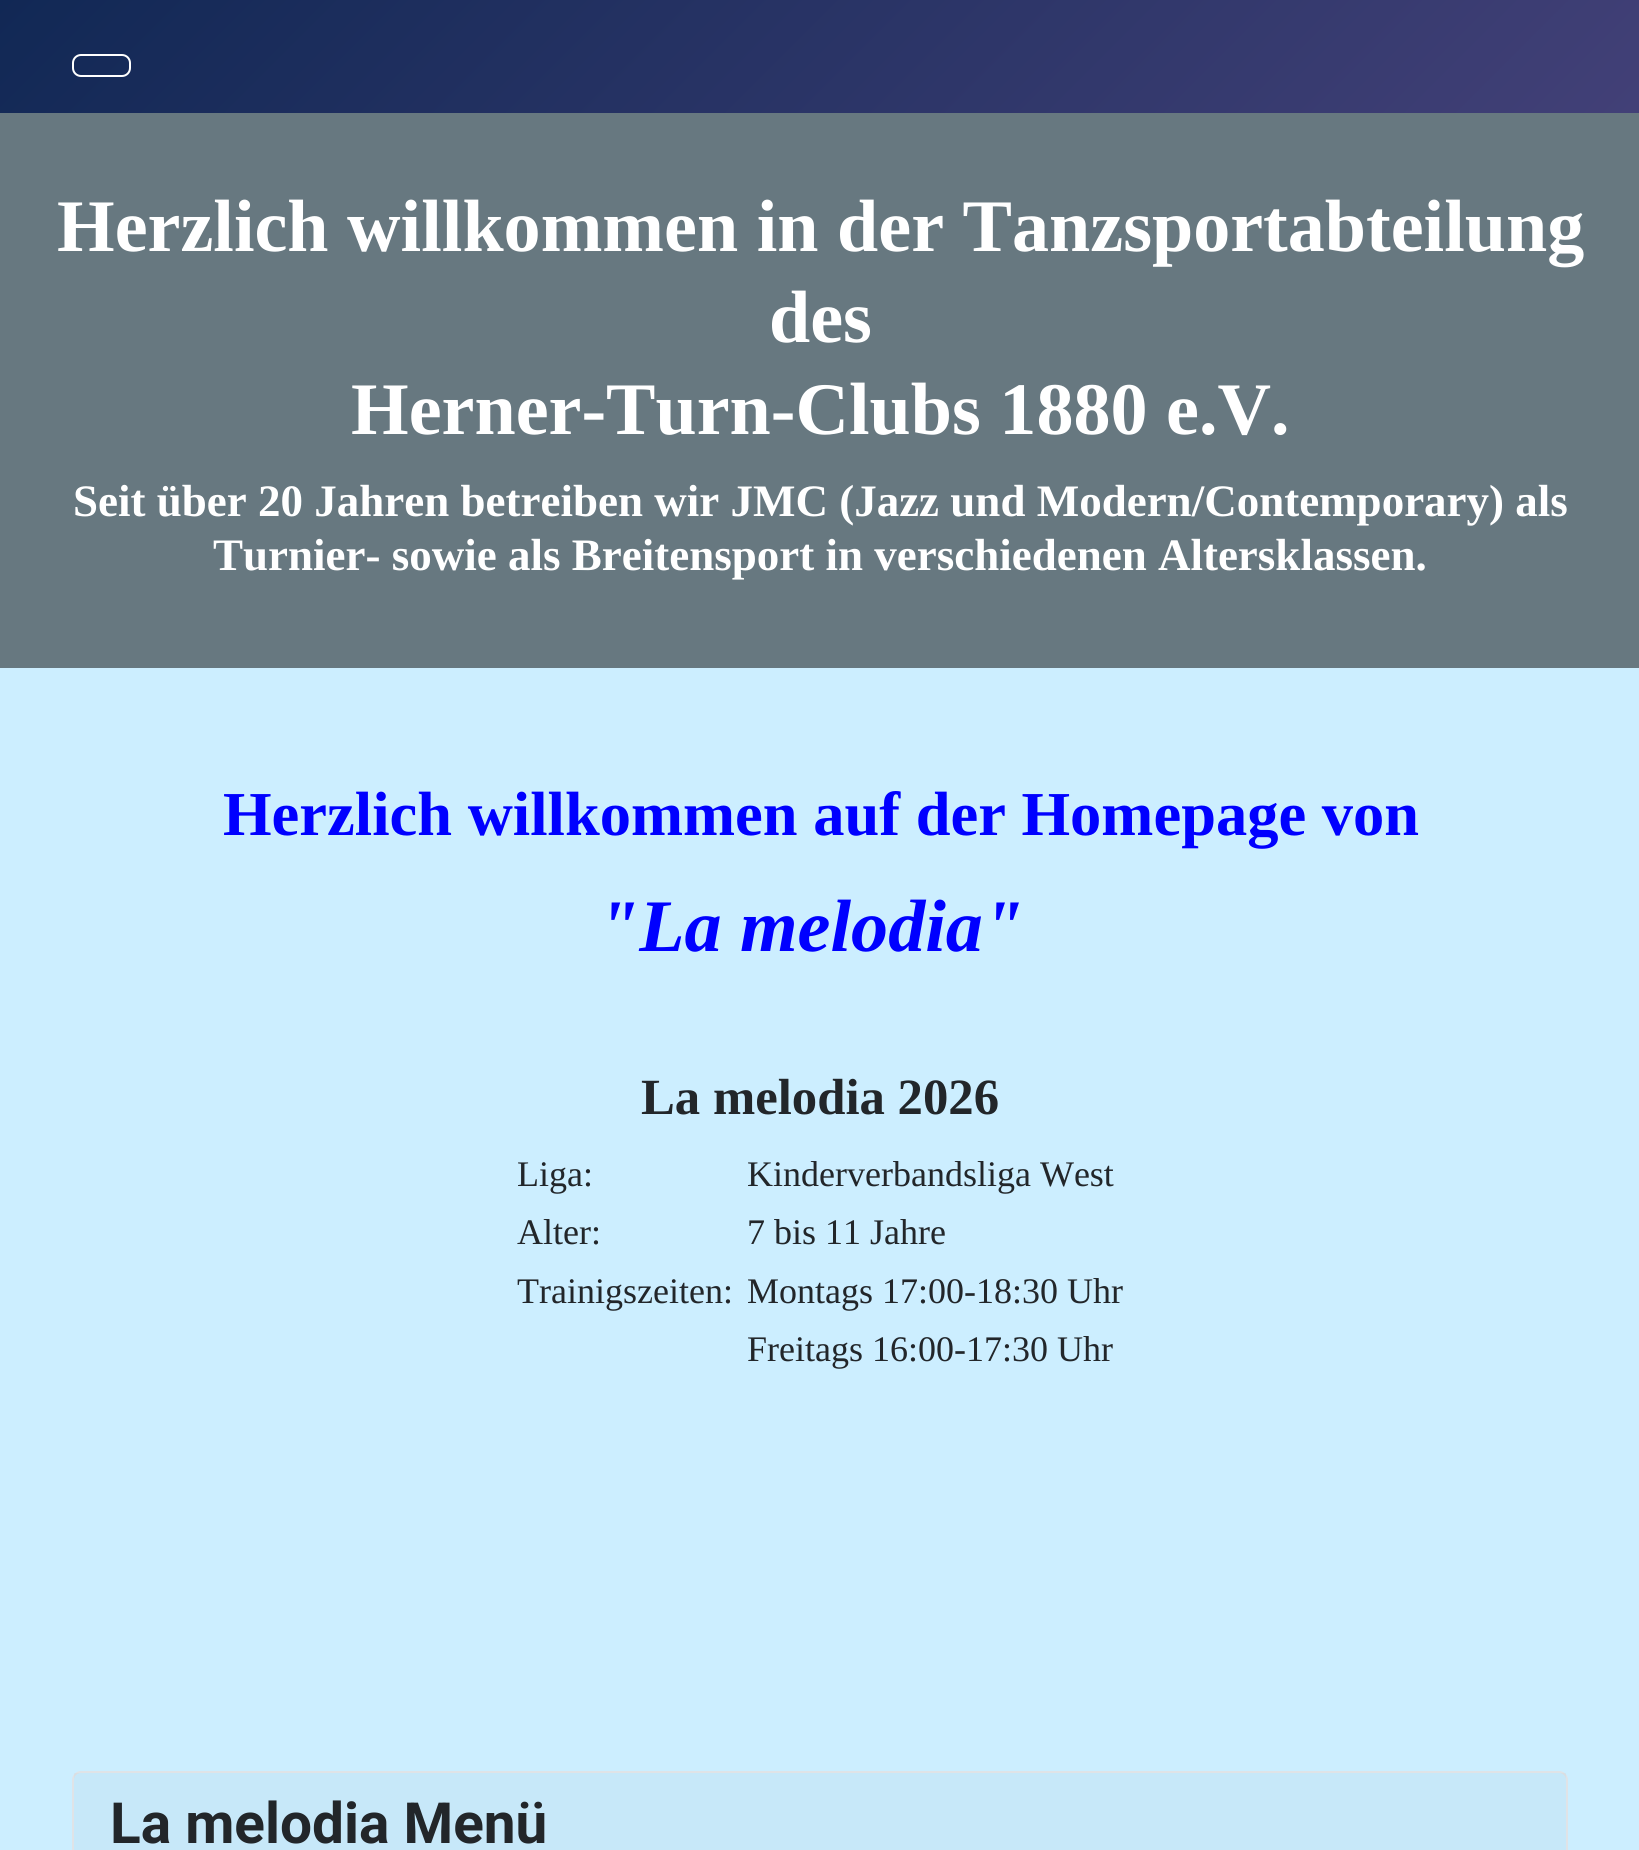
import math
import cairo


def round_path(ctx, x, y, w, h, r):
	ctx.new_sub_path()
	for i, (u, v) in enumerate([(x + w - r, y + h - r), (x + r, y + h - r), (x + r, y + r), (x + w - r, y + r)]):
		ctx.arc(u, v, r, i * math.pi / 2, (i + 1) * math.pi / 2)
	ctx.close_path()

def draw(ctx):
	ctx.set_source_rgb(0.8, 0.933, 1)
	ctx.paint()
	gradient = cairo.LinearGradient(382, -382, 1258, 494)
	gradient.add_color_stop_rgba(0, 0.067, 0.157, 0.333, 1)
	gradient.add_color_stop_rgba(1, 0.259, 0.251, 0.467, 1)
	ctx.set_source(gradient)
	ctx.rectangle(0, 0, 1639, 113)
	ctx.fill()
	round_path(ctx, 73, 55, 57, 21, 8)
	ctx.set_source_rgb(1, 1, 1)
	ctx.stroke()
	ctx.set_source_rgb(0.404, 0.471, 0.502)
	ctx.rectangle(0, 113, 1639, 555)
	ctx.fill()
	ctx.select_font_face('Liberation Serif', cairo.FONT_SLANT_NORMAL, cairo.FONT_WEIGHT_BOLD)
	ctx.set_font_size(74.1)
	ctx.set_source_rgb(1, 1, 1)
	for x, y, s in [
		(57, 251, 'Herzlich willkommen in der Tanzsportabteilung'),
		(769, 342, 'des'),
		(351, 434, 'Herner-Turn-Clubs 1880 e.V.'),
	]:
		ctx.move_to(x, y)
		ctx.show_text(s)
	ctx.set_font_size(45)
	ctx.move_to(73, 516)
	ctx.show_text('Seit über 20 Jahren betreiben wir JMC (Jazz und Modern/Contemporary) als')
	ctx.move_to(213, 570)
	ctx.show_text('Turnier- sowie als Breitensport in verschiedenen Altersklassen.')
	ctx.set_font_size(62.5)
	ctx.set_source_rgb(0, 0, 1)
	ctx.move_to(223, 835)
	ctx.show_text('Herzlich willkommen auf der Homepage von')
	ctx.select_font_face('Liberation Serif', cairo.FONT_SLANT_ITALIC, cairo.FONT_WEIGHT_BOLD)
	ctx.set_font_size(74.1)
	ctx.move_to(598, 951)
	ctx.show_text('"La melodia"')
	ctx.select_font_face('Liberation Serif', cairo.FONT_SLANT_NORMAL, cairo.FONT_WEIGHT_BOLD)
	ctx.set_font_size(50.75)
	ctx.set_source_rgb(0.133, 0.149, 0.165)
	ctx.move_to(641, 1114)
	ctx.show_text('La melodia 2026')
	ctx.select_font_face('Liberation Serif')
	ctx.set_font_size(36)
	for x, y, s in [
		(517, 1186, 'Liga:'),
		(747, 1186, 'Kinderverbandsliga West'),
		(517, 1244, 'Alter:'),
		(747, 1244, '7 bis 11 Jahre'),
		(517, 1303, 'Trainigszeiten:'),
		(747, 1303, 'Montags 17:00-18:30 Uhr'),
		(747, 1361, 'Freitags 16:00-17:30 Uhr'),
	]:
		ctx.move_to(x, y)
		ctx.show_text(s)
	round_path(ctx, 73, 1772, 1494, 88, 8)
	ctx.set_source_rgb(0.875, 0.89, 0.906)
	ctx.stroke()
	ctx.set_source_rgba(0.133, 0.149, 0.165, 0.03)
	ctx.rectangle(74, 1773, 1492, 77)
	ctx.fill()
	ctx.select_font_face('Roboto', cairo.FONT_SLANT_NORMAL, cairo.FONT_WEIGHT_BOLD)
	ctx.set_font_size(56.75)
	ctx.set_source_rgb(0.133, 0.149, 0.165)
	ctx.move_to(110, 1843)
	ctx.show_text('La melodia Menü')


surface = cairo.ImageSurface(cairo.FORMAT_RGB24, 1639, 1850)
ctx = cairo.Context(surface)
options = cairo.FontOptions()
options.set_hint_metrics(cairo.HINT_METRICS_OFF)
options.set_hint_style(cairo.HINT_STYLE_NONE)
ctx.set_font_options(options)
ctx.set_miter_limit(4)
draw(ctx)
surface.write_to_png('image.png')
